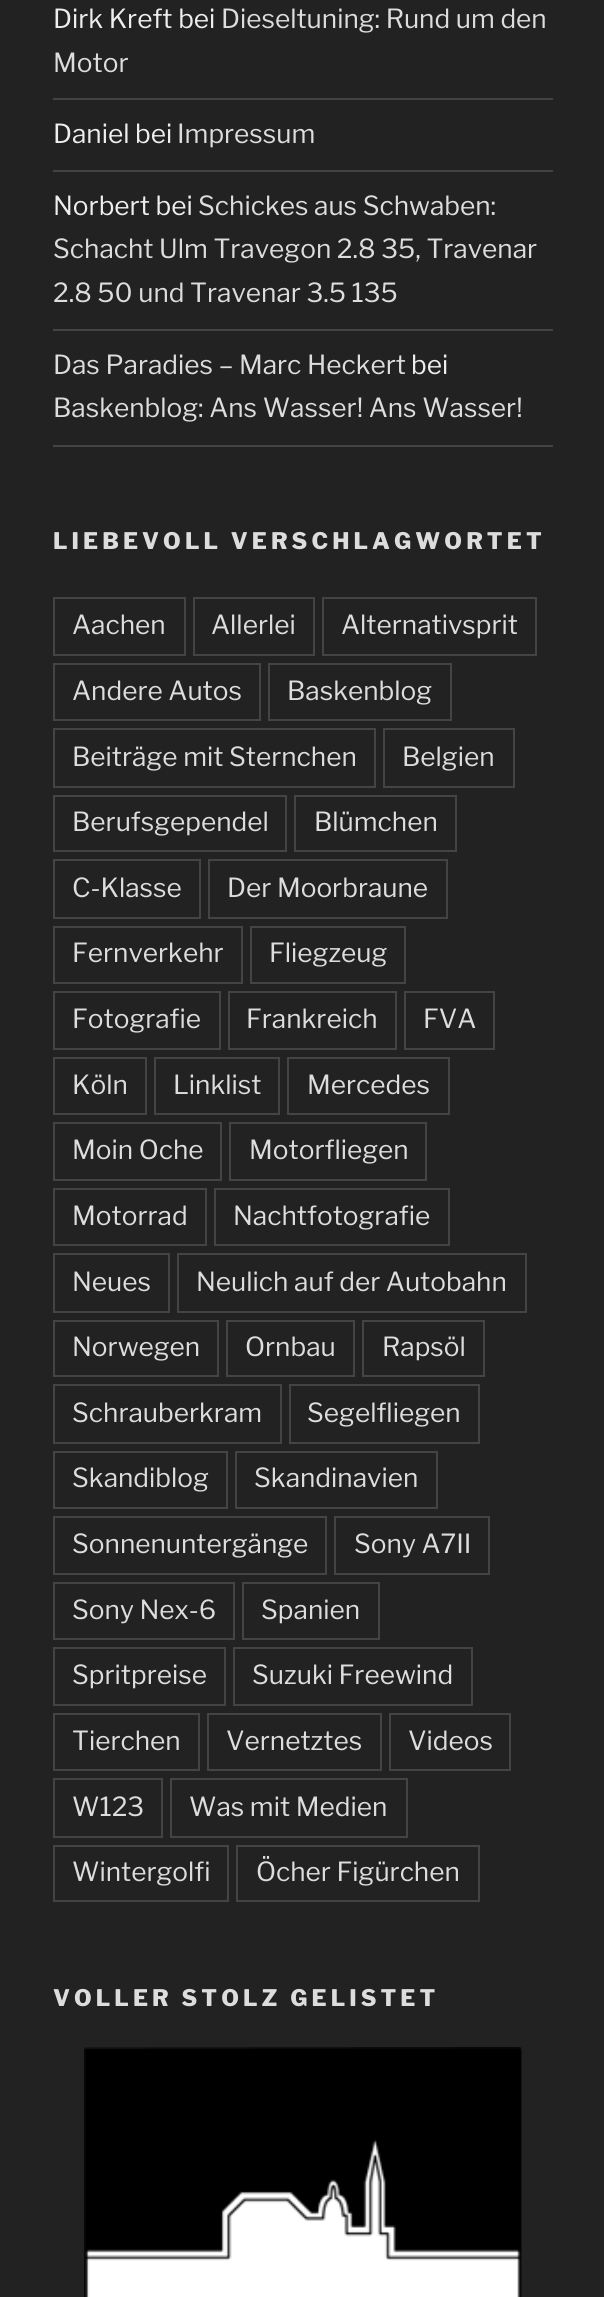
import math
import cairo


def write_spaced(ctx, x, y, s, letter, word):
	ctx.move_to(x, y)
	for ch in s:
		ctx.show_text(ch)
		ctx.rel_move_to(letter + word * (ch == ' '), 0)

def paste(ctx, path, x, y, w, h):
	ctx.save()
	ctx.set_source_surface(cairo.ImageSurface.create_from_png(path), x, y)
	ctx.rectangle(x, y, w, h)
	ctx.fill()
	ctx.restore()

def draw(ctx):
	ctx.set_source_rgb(0.133, 0.133, 0.133)
	ctx.paint()
	ctx.set_source_rgb(0.267, 0.267, 0.267)
	ctx.rectangle(53, 98, 500, 2)
	ctx.fill()
	ctx.select_font_face('Libre Franklin Thin')
	ctx.set_font_size(26.25)
	ctx.set_source_rgb(0.933, 0.933, 0.933)
	ctx.move_to(53, 28)
	ctx.show_text('Dirk Kreft bei')
	ctx.set_source_rgb(0.867, 0.867, 0.867)
	ctx.move_to(221, 28)
	ctx.show_text('Dieseltuning: Rund um den')
	ctx.move_to(53, 72)
	ctx.show_text('Motor')
	ctx.set_source_rgb(0.267, 0.267, 0.267)
	ctx.rectangle(53, 170, 500, 2)
	ctx.fill()
	ctx.set_source_rgb(0.933, 0.933, 0.933)
	ctx.move_to(53, 143)
	ctx.show_text('Daniel bei')
	ctx.set_source_rgb(0.867, 0.867, 0.867)
	ctx.move_to(177, 143)
	ctx.show_text('Impressum')
	ctx.set_source_rgb(0.267, 0.267, 0.267)
	ctx.rectangle(53, 329, 500, 2)
	ctx.fill()
	ctx.set_source_rgb(0.933, 0.933, 0.933)
	ctx.move_to(53, 215)
	ctx.show_text('Norbert bei')
	ctx.set_source_rgb(0.867, 0.867, 0.867)
	for x, y, s in [
		(198, 215, 'Schickes aus Schwaben:'),
		(53, 258, 'Schacht Ulm Travegon 2.8 35, Travenar'),
		(53, 302, '2.8 50 und Travenar 3.5 135'),
	]:
		ctx.move_to(x, y)
		ctx.show_text(s)
	ctx.set_source_rgb(0.267, 0.267, 0.267)
	ctx.rectangle(53, 445, 500, 2)
	ctx.fill()
	ctx.set_source_rgb(0.867, 0.867, 0.867)
	ctx.move_to(53, 374)
	ctx.show_text('Das Paradies – Marc Heckert')
	ctx.set_source_rgb(0.933, 0.933, 0.933)
	ctx.move_to(411, 374)
	ctx.show_text('bei')
	ctx.set_source_rgb(0.867, 0.867, 0.867)
	ctx.move_to(53, 417)
	ctx.show_text('Baskenblog: Ans Wasser! Ans Wasser!')
	ctx.select_font_face('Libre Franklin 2 Thin')
	ctx.set_font_size(22.75)
	write_spaced(ctx, 53, 549, 'LIEBEVOLL VERSCHLAGWORTET', 4.1, 0)
	ctx.rectangle(54, 598, 131, 57)
	ctx.set_source_rgb(0.267, 0.267, 0.267)
	ctx.stroke()
	ctx.select_font_face('Libre Franklin Thin')
	ctx.set_font_size(26.25)
	ctx.set_source_rgb(0.867, 0.867, 0.867)
	ctx.move_to(72, 634)
	ctx.show_text('Aachen')
	ctx.rectangle(194, 598, 120, 57)
	ctx.set_source_rgb(0.267, 0.267, 0.267)
	ctx.stroke()
	ctx.set_source_rgb(0.867, 0.867, 0.867)
	ctx.move_to(211, 634)
	ctx.show_text('Allerlei')
	ctx.rectangle(323, 598, 213, 57)
	ctx.set_source_rgb(0.267, 0.267, 0.267)
	ctx.stroke()
	ctx.set_source_rgb(0.867, 0.867, 0.867)
	ctx.move_to(341, 634)
	ctx.show_text('Alternativsprit')
	ctx.rectangle(54, 664, 206, 56)
	ctx.set_source_rgb(0.267, 0.267, 0.267)
	ctx.stroke()
	ctx.set_source_rgb(0.867, 0.867, 0.867)
	ctx.move_to(72, 700)
	ctx.show_text('Andere Autos')
	ctx.rectangle(269, 664, 182, 56)
	ctx.set_source_rgb(0.267, 0.267, 0.267)
	ctx.stroke()
	ctx.set_source_rgb(0.867, 0.867, 0.867)
	ctx.move_to(287, 700)
	ctx.show_text('Baskenblog')
	ctx.rectangle(54, 729, 321, 58)
	ctx.set_source_rgb(0.267, 0.267, 0.267)
	ctx.stroke()
	ctx.set_source_rgb(0.867, 0.867, 0.867)
	ctx.move_to(72, 766)
	ctx.show_text('Beiträge mit Sternchen')
	ctx.rectangle(384, 729, 130, 58)
	ctx.set_source_rgb(0.267, 0.267, 0.267)
	ctx.stroke()
	ctx.set_source_rgb(0.867, 0.867, 0.867)
	ctx.move_to(402, 766)
	ctx.show_text('Belgien')
	ctx.rectangle(54, 796, 232, 55)
	ctx.set_source_rgb(0.267, 0.267, 0.267)
	ctx.stroke()
	ctx.set_source_rgb(0.867, 0.867, 0.867)
	ctx.move_to(72, 831)
	ctx.show_text('Berufsgependel')
	ctx.rectangle(295, 796, 161, 55)
	ctx.set_source_rgb(0.267, 0.267, 0.267)
	ctx.stroke()
	ctx.set_source_rgb(0.867, 0.867, 0.867)
	ctx.move_to(314, 831)
	ctx.show_text('Blümchen')
	ctx.rectangle(54, 860, 146, 58)
	ctx.set_source_rgb(0.267, 0.267, 0.267)
	ctx.stroke()
	ctx.set_source_rgb(0.867, 0.867, 0.867)
	ctx.move_to(72, 897)
	ctx.show_text('C-Klasse')
	ctx.rectangle(209, 860, 238, 58)
	ctx.set_source_rgb(0.267, 0.267, 0.267)
	ctx.stroke()
	ctx.set_source_rgb(0.867, 0.867, 0.867)
	ctx.move_to(227, 897)
	ctx.show_text('Der Moorbraune')
	ctx.rectangle(54, 927, 188, 56)
	ctx.set_source_rgb(0.267, 0.267, 0.267)
	ctx.stroke()
	ctx.set_source_rgb(0.867, 0.867, 0.867)
	ctx.move_to(72, 962)
	ctx.show_text('Fernverkehr')
	ctx.rectangle(251, 927, 154, 56)
	ctx.set_source_rgb(0.267, 0.267, 0.267)
	ctx.stroke()
	ctx.set_source_rgb(0.867, 0.867, 0.867)
	ctx.move_to(269, 962)
	ctx.show_text('Fliegzeug')
	ctx.rectangle(54, 992, 166, 57)
	ctx.set_source_rgb(0.267, 0.267, 0.267)
	ctx.stroke()
	ctx.set_source_rgb(0.867, 0.867, 0.867)
	ctx.move_to(72, 1028)
	ctx.show_text('Fotografie')
	ctx.rectangle(229, 992, 167, 57)
	ctx.set_source_rgb(0.267, 0.267, 0.267)
	ctx.stroke()
	ctx.set_source_rgb(0.867, 0.867, 0.867)
	ctx.move_to(246, 1028)
	ctx.show_text('Frankreich')
	ctx.rectangle(405, 992, 89, 57)
	ctx.set_source_rgb(0.267, 0.267, 0.267)
	ctx.stroke()
	ctx.set_source_rgb(0.867, 0.867, 0.867)
	ctx.move_to(423, 1028)
	ctx.show_text('FVA')
	ctx.rectangle(54, 1058, 92, 56)
	ctx.set_source_rgb(0.267, 0.267, 0.267)
	ctx.stroke()
	ctx.set_source_rgb(0.867, 0.867, 0.867)
	ctx.move_to(72, 1094)
	ctx.show_text('Köln')
	ctx.rectangle(155, 1058, 124, 56)
	ctx.set_source_rgb(0.267, 0.267, 0.267)
	ctx.stroke()
	ctx.set_source_rgb(0.867, 0.867, 0.867)
	ctx.move_to(173, 1094)
	ctx.show_text('Linklist')
	ctx.rectangle(288, 1058, 161, 56)
	ctx.set_source_rgb(0.267, 0.267, 0.267)
	ctx.stroke()
	ctx.set_source_rgb(0.867, 0.867, 0.867)
	ctx.move_to(307, 1094)
	ctx.show_text('Mercedes')
	ctx.rectangle(54, 1123, 167, 57)
	ctx.set_source_rgb(0.267, 0.267, 0.267)
	ctx.stroke()
	ctx.set_source_rgb(0.867, 0.867, 0.867)
	ctx.move_to(72, 1159)
	ctx.show_text('Moin Oche')
	ctx.rectangle(230, 1123, 196, 57)
	ctx.set_source_rgb(0.267, 0.267, 0.267)
	ctx.stroke()
	ctx.set_source_rgb(0.867, 0.867, 0.867)
	ctx.move_to(249, 1159)
	ctx.show_text('Motorfliegen')
	ctx.rectangle(54, 1189, 152, 56)
	ctx.set_source_rgb(0.267, 0.267, 0.267)
	ctx.stroke()
	ctx.set_source_rgb(0.867, 0.867, 0.867)
	ctx.move_to(72, 1225)
	ctx.show_text('Motorrad')
	ctx.rectangle(215, 1189, 234, 56)
	ctx.set_source_rgb(0.267, 0.267, 0.267)
	ctx.stroke()
	ctx.set_source_rgb(0.867, 0.867, 0.867)
	ctx.move_to(233, 1225)
	ctx.show_text('Nachtfotografie')
	ctx.rectangle(54, 1254, 115, 58)
	ctx.set_source_rgb(0.267, 0.267, 0.267)
	ctx.stroke()
	ctx.set_source_rgb(0.867, 0.867, 0.867)
	ctx.move_to(72, 1291)
	ctx.show_text('Neues')
	ctx.rectangle(178, 1254, 348, 58)
	ctx.set_source_rgb(0.267, 0.267, 0.267)
	ctx.stroke()
	ctx.set_source_rgb(0.867, 0.867, 0.867)
	ctx.move_to(196, 1291)
	ctx.show_text('Neulich auf der Autobahn')
	ctx.rectangle(54, 1321, 164, 55)
	ctx.set_source_rgb(0.267, 0.267, 0.267)
	ctx.stroke()
	ctx.set_source_rgb(0.867, 0.867, 0.867)
	ctx.move_to(72, 1356)
	ctx.show_text('Norwegen')
	ctx.rectangle(227, 1321, 127, 55)
	ctx.set_source_rgb(0.267, 0.267, 0.267)
	ctx.stroke()
	ctx.set_source_rgb(0.867, 0.867, 0.867)
	ctx.move_to(245, 1356)
	ctx.show_text('Ornbau')
	ctx.rectangle(363, 1321, 121, 55)
	ctx.set_source_rgb(0.267, 0.267, 0.267)
	ctx.stroke()
	ctx.set_source_rgb(0.867, 0.867, 0.867)
	ctx.move_to(382, 1356)
	ctx.show_text('Rapsöl')
	ctx.rectangle(54, 1385, 227, 58)
	ctx.set_source_rgb(0.267, 0.267, 0.267)
	ctx.stroke()
	ctx.set_source_rgb(0.867, 0.867, 0.867)
	ctx.move_to(72, 1422)
	ctx.show_text('Schrauberkram')
	ctx.rectangle(290, 1385, 189, 58)
	ctx.set_source_rgb(0.267, 0.267, 0.267)
	ctx.stroke()
	ctx.set_source_rgb(0.867, 0.867, 0.867)
	ctx.move_to(307, 1422)
	ctx.show_text('Segelfliegen')
	ctx.rectangle(54, 1452, 173, 56)
	ctx.set_source_rgb(0.267, 0.267, 0.267)
	ctx.stroke()
	ctx.set_source_rgb(0.867, 0.867, 0.867)
	ctx.move_to(72, 1487)
	ctx.show_text('Skandiblog')
	ctx.rectangle(236, 1452, 201, 56)
	ctx.set_source_rgb(0.267, 0.267, 0.267)
	ctx.stroke()
	ctx.set_source_rgb(0.867, 0.867, 0.867)
	ctx.move_to(254, 1487)
	ctx.show_text('Skandinavien')
	ctx.rectangle(54, 1517, 272, 57)
	ctx.set_source_rgb(0.267, 0.267, 0.267)
	ctx.stroke()
	ctx.set_source_rgb(0.867, 0.867, 0.867)
	ctx.move_to(72, 1553)
	ctx.show_text('Sonnenuntergänge')
	ctx.rectangle(335, 1517, 154, 57)
	ctx.set_source_rgb(0.267, 0.267, 0.267)
	ctx.stroke()
	ctx.set_source_rgb(0.867, 0.867, 0.867)
	ctx.move_to(354, 1553)
	ctx.show_text('Sony A7II')
	ctx.rectangle(54, 1583, 180, 56)
	ctx.set_source_rgb(0.267, 0.267, 0.267)
	ctx.stroke()
	ctx.set_source_rgb(0.867, 0.867, 0.867)
	ctx.move_to(72, 1619)
	ctx.show_text('Sony Nex-6')
	ctx.rectangle(243, 1583, 136, 56)
	ctx.set_source_rgb(0.267, 0.267, 0.267)
	ctx.stroke()
	ctx.set_source_rgb(0.867, 0.867, 0.867)
	ctx.move_to(261, 1619)
	ctx.show_text('Spanien')
	ctx.rectangle(54, 1648, 171, 57)
	ctx.set_source_rgb(0.267, 0.267, 0.267)
	ctx.stroke()
	ctx.set_source_rgb(0.867, 0.867, 0.867)
	ctx.move_to(72, 1684)
	ctx.show_text('Spritpreise')
	ctx.rectangle(234, 1648, 238, 57)
	ctx.set_source_rgb(0.267, 0.267, 0.267)
	ctx.stroke()
	ctx.set_source_rgb(0.867, 0.867, 0.867)
	ctx.move_to(252, 1684)
	ctx.show_text('Suzuki Freewind')
	ctx.rectangle(54, 1714, 145, 56)
	ctx.set_source_rgb(0.267, 0.267, 0.267)
	ctx.stroke()
	ctx.set_source_rgb(0.867, 0.867, 0.867)
	ctx.move_to(72, 1750)
	ctx.show_text('Tierchen')
	ctx.rectangle(208, 1714, 173, 56)
	ctx.set_source_rgb(0.267, 0.267, 0.267)
	ctx.stroke()
	ctx.set_source_rgb(0.867, 0.867, 0.867)
	ctx.move_to(226, 1750)
	ctx.show_text('Vernetztes')
	ctx.rectangle(390, 1714, 120, 56)
	ctx.set_source_rgb(0.267, 0.267, 0.267)
	ctx.stroke()
	ctx.set_source_rgb(0.867, 0.867, 0.867)
	ctx.move_to(408, 1750)
	ctx.show_text('Videos')
	ctx.rectangle(54, 1779, 108, 58)
	ctx.set_source_rgb(0.267, 0.267, 0.267)
	ctx.stroke()
	ctx.set_source_rgb(0.867, 0.867, 0.867)
	ctx.move_to(72, 1816)
	ctx.show_text('W123')
	ctx.rectangle(171, 1779, 236, 58)
	ctx.set_source_rgb(0.267, 0.267, 0.267)
	ctx.stroke()
	ctx.set_source_rgb(0.867, 0.867, 0.867)
	ctx.move_to(189, 1816)
	ctx.show_text('Was mit Medien')
	ctx.rectangle(54, 1846, 174, 55)
	ctx.set_source_rgb(0.267, 0.267, 0.267)
	ctx.stroke()
	ctx.set_source_rgb(0.867, 0.867, 0.867)
	ctx.move_to(72, 1881)
	ctx.show_text('Wintergolfi')
	ctx.rectangle(237, 1846, 242, 55)
	ctx.set_source_rgb(0.267, 0.267, 0.267)
	ctx.stroke()
	ctx.set_source_rgb(0.867, 0.867, 0.867)
	ctx.move_to(256, 1881)
	ctx.show_text('Öcher Figürchen')
	ctx.select_font_face('Libre Franklin 2 Thin')
	ctx.set_font_size(22.75)
	write_spaced(ctx, 53, 2006, 'VOLLER STOLZ GELISTET', 4.1, 0)
	paste(ctx, 'media/1.png', 84, 2047, 438, 250)


surface = cairo.ImageSurface(cairo.FORMAT_RGB24, 604, 2297)
ctx = cairo.Context(surface)
options = cairo.FontOptions()
options.set_hint_metrics(cairo.HINT_METRICS_OFF)
options.set_hint_style(cairo.HINT_STYLE_NONE)
ctx.set_font_options(options)
ctx.set_miter_limit(4)
draw(ctx)
surface.write_to_png('image.png')
